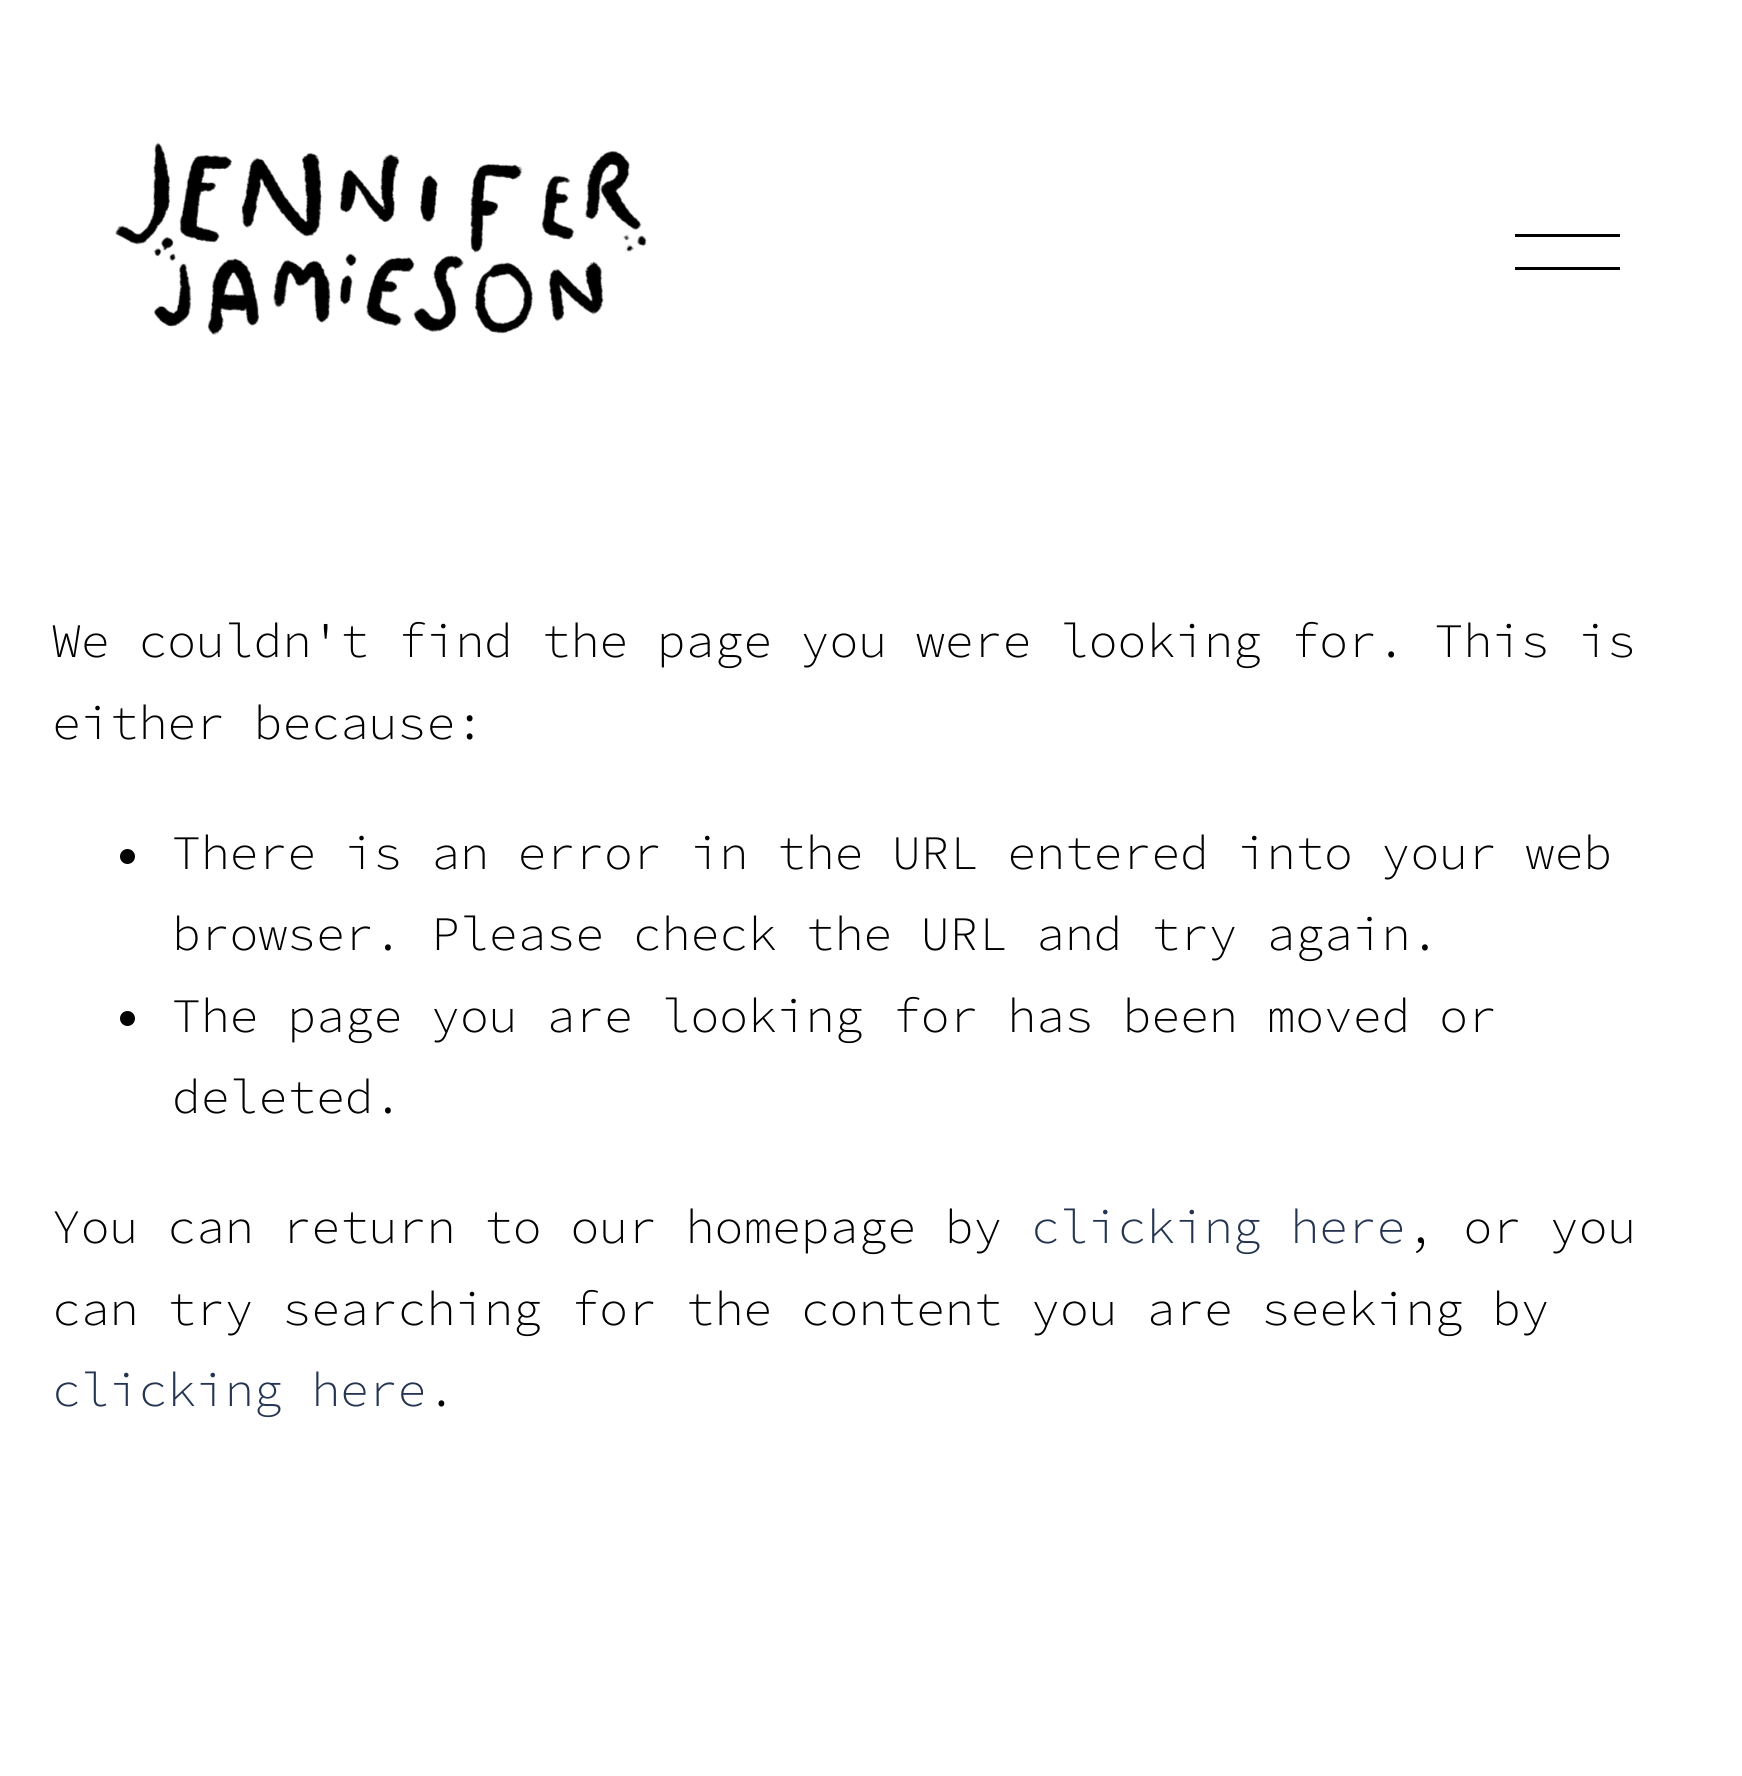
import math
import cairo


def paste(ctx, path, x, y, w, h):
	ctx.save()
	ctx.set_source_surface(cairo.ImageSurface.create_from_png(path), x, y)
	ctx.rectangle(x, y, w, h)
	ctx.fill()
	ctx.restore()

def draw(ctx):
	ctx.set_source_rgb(1, 1, 1)
	ctx.paint()
	paste(ctx, 'media/1.png', 115, 142, 532, 193)
	ctx.set_source_rgb(0, 0, 0)
	ctx.rectangle(1515, 234, 105, 3)
	ctx.fill()
	ctx.rectangle(1515, 267, 105, 3)
	ctx.fill()
	ctx.select_font_face('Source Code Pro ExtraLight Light')
	ctx.set_font_size(48)
	ctx.move_to(52, 657)
	ctx.show_text('We couldn\'t find the page you were looking for. This is')
	ctx.move_to(52, 739)
	ctx.show_text('either because:')
	ctx.new_path()
	ctx.arc(127.5, 856.5, 7.5, 0, 2 * math.pi)
	ctx.fill()
	ctx.move_to(172, 869)
	ctx.show_text('There is an error in the URL entered into your web')
	ctx.move_to(172, 950)
	ctx.show_text('browser. Please check the URL and try again.')
	ctx.new_path()
	ctx.arc(127.5, 1018.5, 7.5, 0, 2 * math.pi)
	ctx.fill()
	for x, y, s in [
		(172, 1032, 'The page you are looking for has been moved or'),
		(172, 1113, 'deleted.'),
		(52, 1243, 'You can return to our homepage by'),
	]:
		ctx.move_to(x, y)
		ctx.show_text(s)
	ctx.set_source_rgb(0.145, 0.208, 0.318)
	ctx.move_to(1031, 1243)
	ctx.show_text('clicking here')
	ctx.set_source_rgb(0, 0, 0)
	ctx.move_to(1406, 1243)
	ctx.show_text(', or you')
	ctx.move_to(52, 1325)
	ctx.show_text('can try searching for the content you are seeking by')
	ctx.set_source_rgb(0.145, 0.208, 0.318)
	ctx.move_to(52, 1406)
	ctx.show_text('clicking here')
	ctx.set_source_rgb(0, 0, 0)
	ctx.move_to(427, 1406)
	ctx.show_text('.')


surface = cairo.ImageSurface(cairo.FORMAT_RGB24, 1742, 1776)
ctx = cairo.Context(surface)
options = cairo.FontOptions()
options.set_hint_metrics(cairo.HINT_METRICS_OFF)
options.set_hint_style(cairo.HINT_STYLE_NONE)
ctx.set_font_options(options)
ctx.set_miter_limit(4)
draw(ctx)
surface.write_to_png('image.png')
